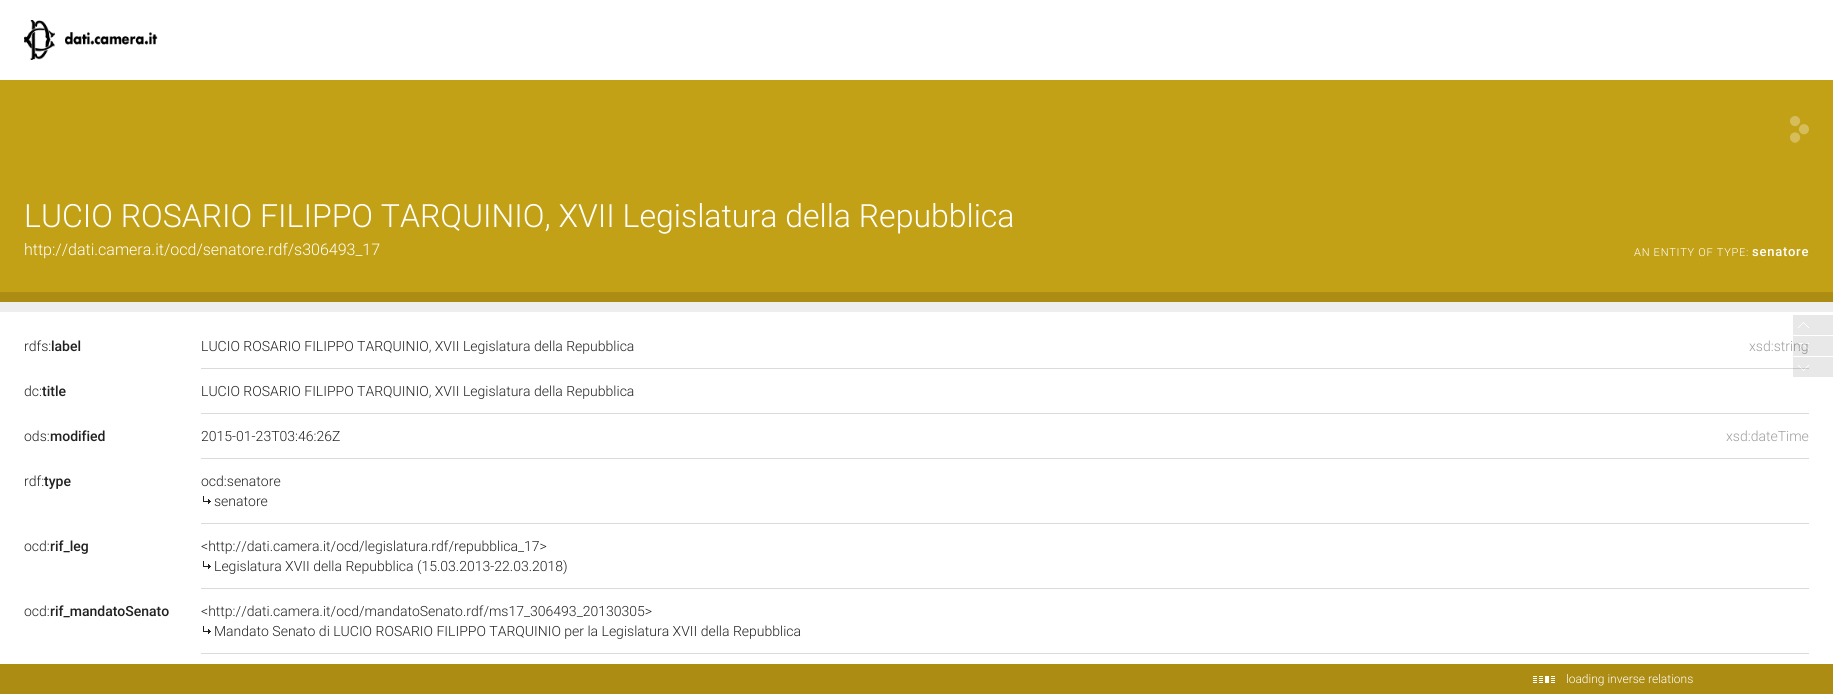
import math
import cairo


def write_spaced(ctx, x, y, s, letter, word):
	ctx.move_to(x, y)
	for ch in s:
		ctx.show_text(ch)
		ctx.rel_move_to(letter + word * (ch == ' '), 0)

def paste(ctx, path, x, y, w, h):
	ctx.save()
	ctx.set_source_surface(cairo.ImageSurface.create_from_png(path), x, y)
	ctx.rectangle(x, y, w, h)
	ctx.fill()
	ctx.restore()

def draw(ctx):
	ctx.set_source_rgb(0.675, 0.549, 0.075)
	ctx.paint()
	ctx.set_source_rgb(1, 1, 1)
	ctx.rectangle(0, 0, 1833, 80)
	ctx.fill()
	paste(ctx, 'media/1.png', 24, 20, 134, 40)
	ctx.set_source_rgb(0.765, 0.631, 0.086)
	ctx.rectangle(0, 80, 1833, 212)
	ctx.fill()
	ctx.select_font_face('Roboto Light')
	ctx.set_font_size(32)
	ctx.set_source_rgb(1, 1, 1)
	ctx.move_to(24, 227)
	ctx.show_text('LUCIO ROSARIO FILIPPO TARQUINIO, XVII Legislatura della Repubblica')
	paste(ctx, 'media/2.png', 1790, 116, 19, 27)
	ctx.set_font_size(16)
	ctx.move_to(24, 255)
	ctx.show_text('http://dati.camera.it/ocd/senatore.rdf/s306493_17')
	ctx.set_font_size(11)
	write_spaced(ctx, 1634, 256, 'AN ENTITY OF TYPE:', 0.75, 0)
	ctx.select_font_face('Roboto Medium')
	ctx.set_font_size(13)
	write_spaced(ctx, 1752, 256, 'senatore', 0.75, 0)
	ctx.set_source_rgb(0.933, 0.933, 0.933)
	ctx.rectangle(0, 302, 1833, 10)
	ctx.fill()
	ctx.set_source_rgb(1, 1, 1)
	ctx.rectangle(0, 312, 1833, 352)
	ctx.fill()
	ctx.select_font_face('Roboto Light')
	ctx.set_font_size(14)
	ctx.set_source_rgb(0.129, 0.129, 0.129)
	ctx.move_to(24, 351)
	ctx.show_text('rdfs:')
	ctx.select_font_face('Roboto Medium')
	ctx.move_to(51, 351)
	ctx.show_text('label')
	ctx.set_source_rgb(0.859, 0.859, 0.859)
	ctx.rectangle(201, 368, 1608, 1)
	ctx.fill()
	ctx.select_font_face('Roboto Light')
	ctx.set_source_rgb(0.129, 0.129, 0.129)
	ctx.move_to(201, 351)
	ctx.show_text('LUCIO ROSARIO FILIPPO TARQUINIO, XVII Legislatura della Repubblica')
	ctx.set_source_rgb(0.62, 0.62, 0.62)
	ctx.move_to(1749, 351)
	ctx.show_text('xsd:string')
	ctx.set_source_rgb(0.129, 0.129, 0.129)
	ctx.move_to(24, 396)
	ctx.show_text('dc:')
	ctx.select_font_face('Roboto Medium')
	ctx.move_to(42, 396)
	ctx.show_text('title')
	ctx.set_source_rgb(0.859, 0.859, 0.859)
	ctx.rectangle(201, 413, 1608, 1)
	ctx.fill()
	ctx.select_font_face('Roboto Light')
	ctx.set_source_rgb(0.129, 0.129, 0.129)
	ctx.move_to(201, 396)
	ctx.show_text('LUCIO ROSARIO FILIPPO TARQUINIO, XVII Legislatura della Repubblica')
	ctx.move_to(24, 441)
	ctx.show_text('ods:')
	ctx.select_font_face('Roboto Medium')
	ctx.move_to(50, 441)
	ctx.show_text('modified')
	ctx.set_source_rgb(0.859, 0.859, 0.859)
	ctx.rectangle(201, 458, 1608, 1)
	ctx.fill()
	ctx.select_font_face('Roboto Light')
	ctx.set_source_rgb(0.129, 0.129, 0.129)
	ctx.move_to(201, 441)
	ctx.show_text('2015-01-23T03:46:26Z')
	ctx.set_source_rgb(0.62, 0.62, 0.62)
	ctx.move_to(1726, 441)
	ctx.show_text('xsd:dateTime')
	ctx.set_source_rgb(0.129, 0.129, 0.129)
	ctx.move_to(24, 486)
	ctx.show_text('rdf:')
	ctx.select_font_face('Roboto Medium')
	ctx.move_to(44, 486)
	ctx.show_text('type')
	ctx.set_source_rgb(0.859, 0.859, 0.859)
	ctx.rectangle(201, 523, 1608, 1)
	ctx.fill()
	ctx.select_font_face('Roboto Light')
	ctx.set_source_rgb(0.129, 0.129, 0.129)
	ctx.move_to(201, 486)
	ctx.show_text('ocd:senatore')
	paste(ctx, 'media/3.png', 203, 496, 8, 8)
	ctx.move_to(214, 506)
	ctx.show_text('senatore')
	ctx.move_to(24, 551)
	ctx.show_text('ocd:')
	ctx.select_font_face('Roboto Medium')
	ctx.move_to(50, 551)
	ctx.show_text('rif_leg')
	ctx.set_source_rgb(0.859, 0.859, 0.859)
	ctx.rectangle(201, 588, 1608, 1)
	ctx.fill()
	ctx.select_font_face('Roboto Light')
	ctx.set_source_rgb(0.129, 0.129, 0.129)
	ctx.move_to(201, 551)
	ctx.show_text('<http://dati.camera.it/ocd/legislatura.rdf/repubblica_17>')
	paste(ctx, 'media/3.png', 203, 561, 8, 8)
	ctx.move_to(214, 571)
	ctx.show_text('Legislatura XVII della Repubblica (15.03.2013-22.03.2018)')
	ctx.move_to(24, 616)
	ctx.show_text('ocd:')
	ctx.select_font_face('Roboto Medium')
	ctx.move_to(50, 616)
	ctx.show_text('rif_mandatoSenato')
	ctx.set_source_rgb(0.859, 0.859, 0.859)
	ctx.rectangle(201, 653, 1608, 1)
	ctx.fill()
	ctx.select_font_face('Roboto Light')
	ctx.set_source_rgb(0.129, 0.129, 0.129)
	ctx.move_to(201, 616)
	ctx.show_text('<http://dati.camera.it/ocd/mandatoSenato.rdf/ms17_306493_20130305>')
	paste(ctx, 'media/3.png', 203, 626, 8, 8)
	ctx.move_to(214, 636)
	ctx.show_text('Mandato Senato di LUCIO ROSARIO FILIPPO TARQUINIO per la Legislatura XVII della Repubblica')
	paste(ctx, 'media/4.png', 1793, 315, 40, 20)
	paste(ctx, 'media/5.png', 1793, 336, 40, 20)
	paste(ctx, 'media/6.png', 1793, 357, 40, 20)
	paste(ctx, 'media/7.png', 1533, 676, 22, 7)
	ctx.set_font_size(12)
	ctx.set_source_rgb(1, 1, 1)
	ctx.move_to(1566, 683)
	ctx.show_text('loading inverse relations')


surface = cairo.ImageSurface(cairo.FORMAT_RGB24, 1833, 694)
ctx = cairo.Context(surface)
options = cairo.FontOptions()
options.set_hint_metrics(cairo.HINT_METRICS_OFF)
options.set_hint_style(cairo.HINT_STYLE_NONE)
ctx.set_font_options(options)
ctx.set_miter_limit(4)
draw(ctx)
surface.write_to_png('image.png')
